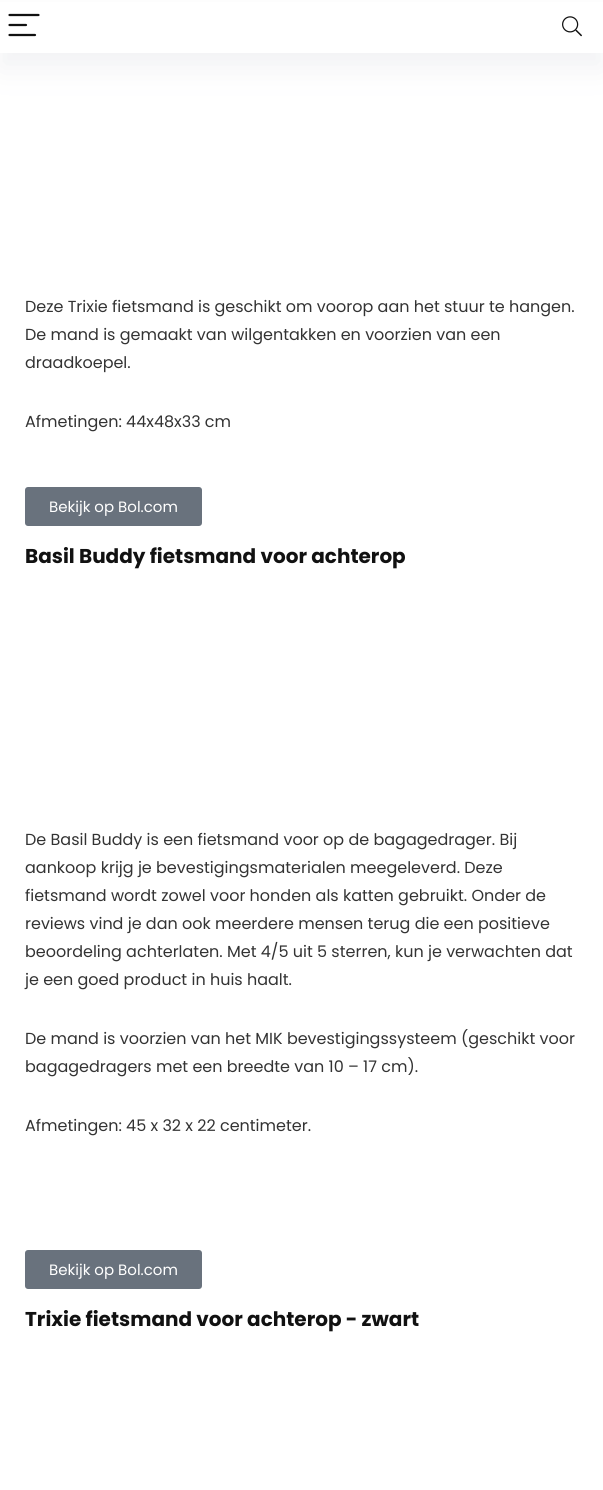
import math
import cairo


def round_path(ctx, x, y, w, h, r):
	ctx.new_sub_path()
	for i, (u, v) in enumerate([(x + w - r, y + h - r), (x + r, y + h - r), (x + r, y + r), (x + w - r, y + r)]):
		ctx.arc(u, v, r, i * math.pi / 2, (i + 1) * math.pi / 2)
	ctx.close_path()

def blur_box(ctx, x, y, w, h, r, blur, alpha):
	ctx.push_group_with_content(cairo.CONTENT_ALPHA)
	ctx.set_operator(cairo.OPERATOR_SOURCE)
	for i in range(15, -16, -2):
		e = blur * i / 6
		if min(w, h) + 2 * e > 0:
			ctx.set_source_rgba(0, 0, 0, alpha * math.erfc((i - 1) / 8.5) / 2)
			round_path(ctx, x - e, y - e, w + 2 * e, h + 2 * e, max(0, min(r + e + blur * .6, min(w, h) / 2 + e)))
			ctx.fill()
	ctx.mask(ctx.pop_group())

def paste(ctx, path, x, y, w, h):
	ctx.save()
	ctx.set_source_surface(cairo.ImageSurface.create_from_png(path), x, y)
	ctx.rectangle(x, y, w, h)
	ctx.fill()
	ctx.restore()

def draw(ctx):
	ctx.set_source_rgb(1, 1, 1)
	ctx.paint()
	ctx.set_source_rgb(0.467, 0.482, 0.573)
	blur_box(ctx, 0, 15, 603, 53, 0, 15, 0.1)
	ctx.set_source_rgb(1, 1, 1)
	ctx.rectangle(0, 2, 603, 51)
	ctx.fill()
	ctx.new_path()
	ctx.move_to(9.5, 15)
	ctx.line_to(38.5, 15)
	ctx.move_to(9.5, 25)
	ctx.line_to(26, 25)
	ctx.move_to(9.5, 35)
	ctx.line_to(35, 35)
	ctx.set_source_rgb(0.067, 0.067, 0.067)
	ctx.set_line_width(2.2)
	ctx.set_line_cap(cairo.LINE_CAP_ROUND)
	ctx.stroke()
	paste(ctx, 'media/1.png', 562, 16, 20, 21)
	ctx.select_font_face('Poppins')
	ctx.set_font_size(16)
	ctx.set_source_rgb(0.2, 0.2, 0.2)
	for x, y, s in [
		(25, 312, 'Deze Trixie fietsmand is geschikt om voorop aan het stuur te hangen.'),
		(25, 340, 'De mand is gemaakt van wilgentakken en voorzien van een'),
		(25, 368, 'draadkoepel.'),
		(25, 427, 'Afmetingen: 44x48x33 cm'),
	]:
		ctx.move_to(x, y)
		ctx.show_text(s)
	ctx.set_source_rgb(0.412, 0.447, 0.49)
	round_path(ctx, 25, 487, 177, 39, 3)
	ctx.fill()
	ctx.set_font_size(15)
	ctx.set_source_rgb(1, 1, 1)
	ctx.move_to(49, 512)
	ctx.show_text('Bekijk op Bol.com')
	ctx.select_font_face('Poppins', cairo.FONT_SLANT_NORMAL, cairo.FONT_WEIGHT_BOLD)
	ctx.set_font_size(20)
	ctx.set_source_rgb(0.067, 0.067, 0.067)
	ctx.move_to(25, 563)
	ctx.show_text('Basil Buddy fietsmand voor achterop')
	ctx.select_font_face('Poppins')
	ctx.set_font_size(16)
	ctx.set_source_rgb(0.2, 0.2, 0.2)
	for x, y, s in [
		(25, 845, 'De Basil Buddy is een fietsmand voor op de bagagedrager. Bij'),
		(25, 873, 'aankoop krijg je bevestigingsmaterialen meegeleverd. Deze'),
		(25, 901, 'fietsmand wordt zowel voor honden als katten gebruikt. Onder de'),
		(25, 929, 'reviews vind je dan ook meerdere mensen terug die een positieve'),
		(25, 957, 'beoordeling achterlaten. Met 4/5 uit 5 sterren, kun je verwachten dat'),
		(25, 985, 'je een goed product in huis haalt.'),
		(25, 1044, 'De mand is voorzien van het MIK bevestigingssysteem (geschikt voor'),
		(25, 1072, 'bagagedragers met een breedte van 10 – 17 cm).'),
		(25, 1131, 'Afmetingen: 45 x 32 x 22 centimeter.'),
	]:
		ctx.move_to(x, y)
		ctx.show_text(s)
	ctx.set_source_rgb(0.412, 0.447, 0.49)
	round_path(ctx, 25, 1250, 177, 39, 3)
	ctx.fill()
	ctx.set_font_size(15)
	ctx.set_source_rgb(1, 1, 1)
	ctx.move_to(49, 1275)
	ctx.show_text('Bekijk op Bol.com')
	ctx.select_font_face('Poppins', cairo.FONT_SLANT_NORMAL, cairo.FONT_WEIGHT_BOLD)
	ctx.set_font_size(20)
	ctx.set_source_rgb(0.067, 0.067, 0.067)
	ctx.move_to(25, 1326)
	ctx.show_text('Trixie fietsmand voor achterop - zwart')


surface = cairo.ImageSurface(cairo.FORMAT_RGB24, 603, 1490)
ctx = cairo.Context(surface)
options = cairo.FontOptions()
options.set_hint_metrics(cairo.HINT_METRICS_OFF)
options.set_hint_style(cairo.HINT_STYLE_NONE)
ctx.set_font_options(options)
ctx.set_miter_limit(4)
draw(ctx)
surface.write_to_png('image.png')
